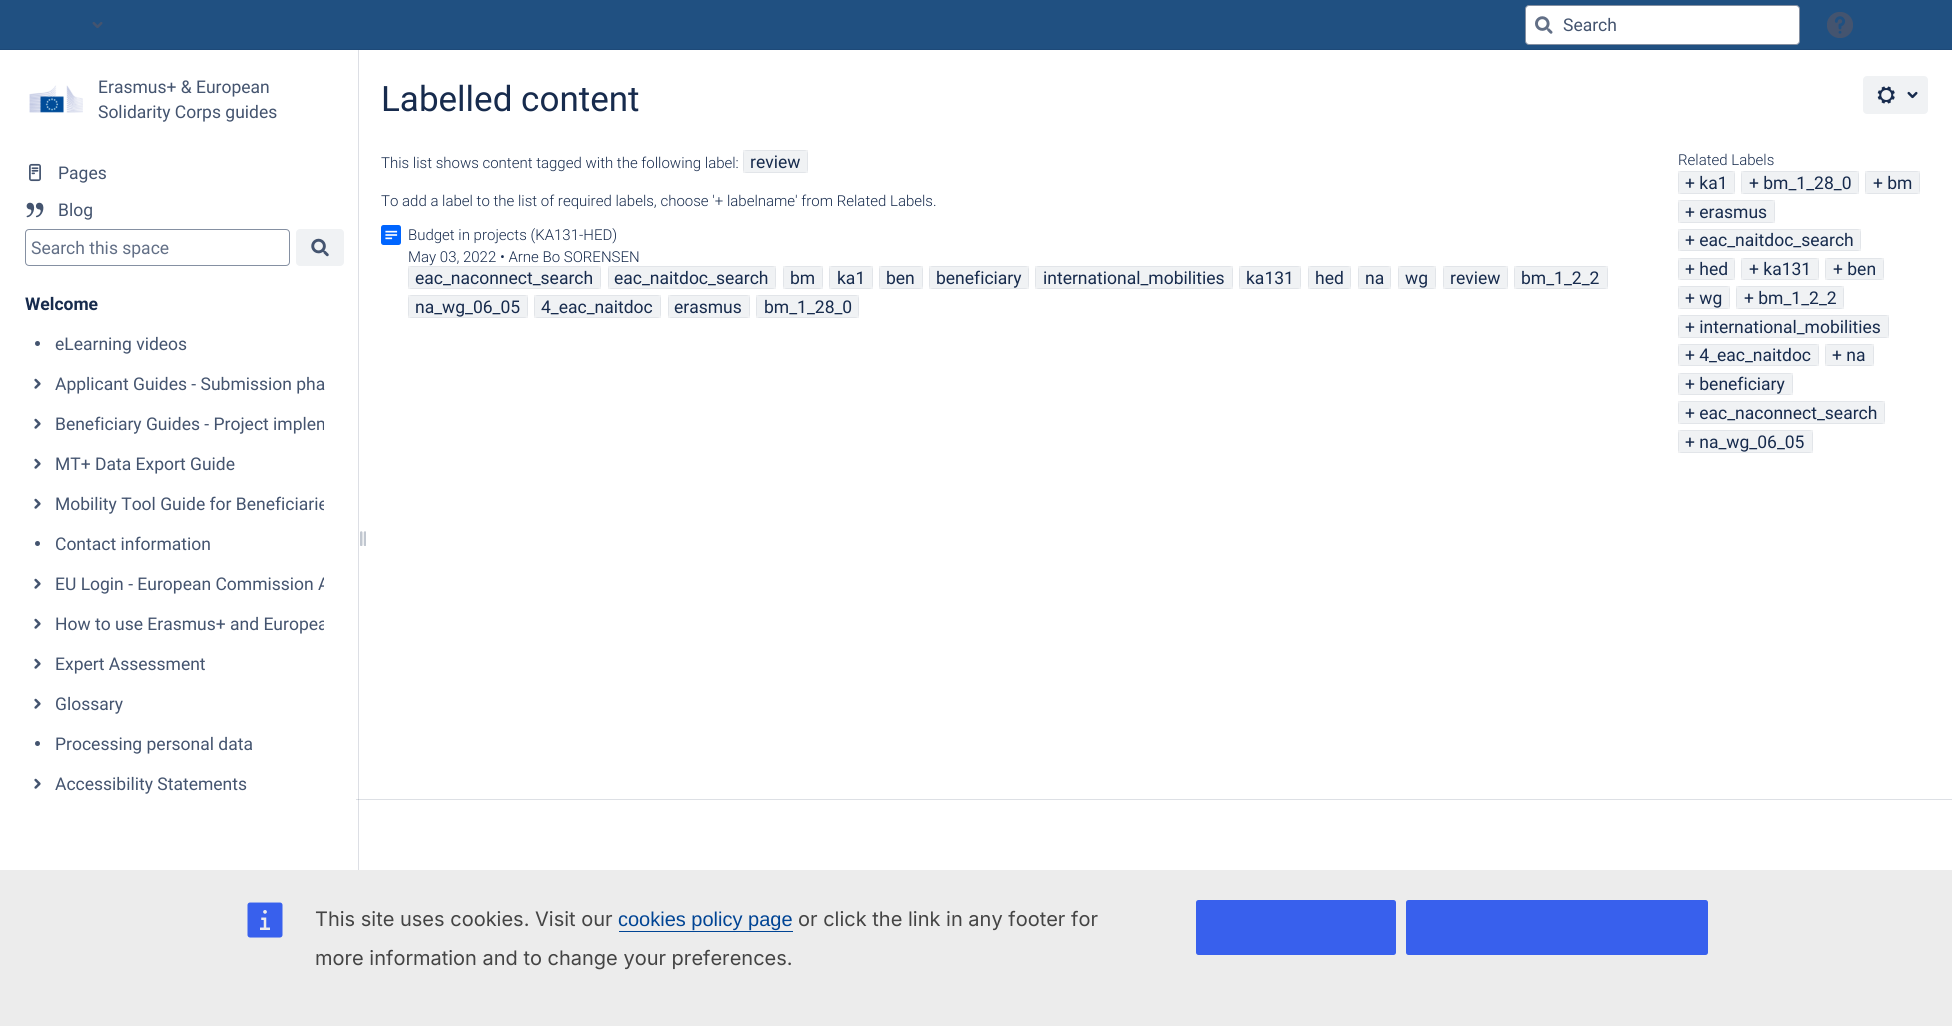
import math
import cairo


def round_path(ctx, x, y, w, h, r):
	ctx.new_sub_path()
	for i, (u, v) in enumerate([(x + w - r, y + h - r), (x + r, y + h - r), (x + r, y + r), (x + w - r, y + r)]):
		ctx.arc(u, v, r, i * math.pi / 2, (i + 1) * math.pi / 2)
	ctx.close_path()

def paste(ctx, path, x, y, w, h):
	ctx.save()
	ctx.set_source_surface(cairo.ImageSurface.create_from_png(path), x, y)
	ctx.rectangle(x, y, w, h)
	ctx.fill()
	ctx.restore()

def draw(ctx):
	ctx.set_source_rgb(1, 1, 1)
	ctx.paint()
	ctx.set_source_rgb(0.867, 0.875, 0.898)
	ctx.rectangle(358, 50, 1, 820)
	ctx.fill()
	ctx.set_source_rgb(0.125, 0.314, 0.506)
	ctx.rectangle(0, 0, 1952, 49)
	ctx.fill()
	ctx.set_source_rgb(0.114, 0.286, 0.471)
	ctx.rectangle(0, 49, 1952, 1)
	ctx.fill()
	paste(ctx, 'media/1.png', 92, 22, 11, 6)
	ctx.set_source_rgb(1, 1, 1)
	round_path(ctx, 1525.5, 5.5, 274, 39, 3.5)
	ctx.fill_preserve()
	ctx.set_source_rgb(0.522, 0.565, 0.635)
	ctx.set_line_width(1)
	ctx.stroke()
	paste(ctx, 'media/2.png', 1535, 16, 18, 18)
	ctx.select_font_face('Roboto')
	ctx.set_font_size(17.5)
	ctx.set_source_rgb(0.267, 0.329, 0.435)
	ctx.move_to(1563, 31)
	ctx.show_text('Search')
	paste(ctx, 'media/3.png', 1827, 12, 26, 26)
	paste(ctx, 'media/4.png', 29, 85, 54, 28)
	ctx.move_to(98, 93)
	ctx.show_text('Erasmus+ & European')
	ctx.move_to(98, 118)
	ctx.show_text('Solidarity Corps guides')
	paste(ctx, 'media/5.png', 29, 163, 12, 19)
	ctx.move_to(58, 179)
	ctx.show_text('Pages')
	paste(ctx, 'media/6.png', 26, 202, 18, 16)
	ctx.move_to(58, 216)
	ctx.show_text('Blog')
	round_path(ctx, 25.5, 229.5, 264, 36, 3.5)
	ctx.set_source_rgb(0.522, 0.565, 0.635)
	ctx.stroke()
	ctx.set_source_rgb(0.384, 0.435, 0.525)
	ctx.move_to(31, 254)
	ctx.show_text('Search this space')
	ctx.set_source_rgb(0.941, 0.949, 0.957)
	round_path(ctx, 296, 229, 48, 37, 4)
	ctx.fill()
	paste(ctx, 'media/7.png', 311, 238, 18, 19)
	ctx.select_font_face('Roboto', cairo.FONT_SLANT_NORMAL, cairo.FONT_WEIGHT_BOLD)
	ctx.set_source_rgb(0.09, 0.169, 0.302)
	ctx.move_to(25, 310)
	ctx.show_text('Welcome')
	ctx.set_source_rgb(0.267, 0.329, 0.435)
	ctx.new_path()
	ctx.arc(37.5, 343.5, 2.5, 0, 2 * math.pi)
	ctx.fill()
	ctx.select_font_face('Roboto')
	ctx.move_to(55, 350)
	ctx.show_text('eLearning videos')
	paste(ctx, 'media/8.png', 34, 378, 7, 11)
	ctx.move_to(55, 390)
	ctx.show_text('Applicant Guides - Submission pha')
	paste(ctx, 'media/8.png', 34, 418, 7, 11)
	ctx.save()
	ctx.rectangle(53, 409, 271, 30)
	ctx.clip()
	ctx.move_to(55, 430)
	ctx.show_text('Beneficiary Guides - Project implem')
	ctx.restore()
	paste(ctx, 'media/8.png', 34, 458, 7, 11)
	ctx.move_to(55, 470)
	ctx.show_text('MT+ Data Export Guide')
	paste(ctx, 'media/8.png', 34, 498, 7, 11)
	ctx.save()
	ctx.rectangle(53, 489, 271, 30)
	ctx.clip()
	ctx.move_to(55, 510)
	ctx.show_text('Mobility Tool Guide for Beneficiarie')
	ctx.restore()
	ctx.new_path()
	ctx.arc(37.5, 543.5, 2.5, 0, 2 * math.pi)
	ctx.fill()
	ctx.move_to(55, 550)
	ctx.show_text('Contact information')
	paste(ctx, 'media/8.png', 34, 578, 7, 11)
	ctx.save()
	ctx.rectangle(53, 569, 271, 30)
	ctx.clip()
	ctx.move_to(55, 590)
	ctx.show_text('EU Login - European Commission A')
	ctx.restore()
	paste(ctx, 'media/8.png', 34, 618, 7, 11)
	ctx.save()
	ctx.rectangle(53, 609, 271, 30)
	ctx.clip()
	ctx.move_to(55, 630)
	ctx.show_text('How to use Erasmus+ and Europea')
	ctx.restore()
	paste(ctx, 'media/8.png', 34, 658, 7, 11)
	ctx.move_to(55, 670)
	ctx.show_text('Expert Assessment')
	paste(ctx, 'media/8.png', 34, 698, 7, 11)
	ctx.move_to(55, 710)
	ctx.show_text('Glossary')
	ctx.new_path()
	ctx.arc(37.5, 743.5, 2.5, 0, 2 * math.pi)
	ctx.fill()
	ctx.move_to(55, 750)
	ctx.show_text('Processing personal data')
	paste(ctx, 'media/8.png', 34, 778, 7, 11)
	ctx.move_to(55, 790)
	ctx.show_text('Accessibility Statements')
	paste(ctx, 'media/9.png', 360, 531, 6, 15)
	ctx.set_source_rgb(0.867, 0.878, 0.898)
	ctx.rectangle(356, 799, 1596, 1)
	ctx.fill()
	ctx.set_source_rgb(0.749, 0.773, 0.808)
	ctx.rectangle(358, 799, 1, 1)
	ctx.fill()
	ctx.set_font_size(35)
	ctx.set_source_rgb(0.09, 0.169, 0.302)
	ctx.move_to(381, 111)
	ctx.show_text('Labelled content')
	ctx.set_source_rgb(0.941, 0.949, 0.957)
	round_path(ctx, 1863, 76, 65, 38, 4)
	ctx.fill()
	paste(ctx, 'media/10.png', 1877, 86, 18, 18)
	paste(ctx, 'media/11.png', 1907, 91, 11, 8)
	ctx.select_font_face('Roboto Light')
	ctx.set_font_size(15)
	ctx.set_source_rgb(0.09, 0.169, 0.302)
	ctx.move_to(381, 168)
	ctx.show_text('This list shows content tagged with the following label:')
	ctx.set_source_rgb(0.941, 0.949, 0.957)
	round_path(ctx, 743, 150, 65, 23, 4)
	ctx.fill()
	ctx.rectangle(743.5, 150.5, 64, 22)
	ctx.set_source_rgba(0.035, 0.118, 0.259, 0.06)
	ctx.stroke()
	ctx.select_font_face('Roboto')
	ctx.set_font_size(17.5)
	ctx.set_source_rgb(0.09, 0.169, 0.302)
	ctx.move_to(750, 168)
	ctx.show_text('review')
	ctx.select_font_face('Roboto Light')
	ctx.set_font_size(15)
	ctx.move_to(381, 206)
	ctx.show_text('To add a label to the list of required labels, choose \'+ labelname\' from Related Labels.')
	paste(ctx, 'media/12.png', 381, 225, 20, 20)
	ctx.move_to(408, 240)
	ctx.show_text('Budget in projects (KA131-HED)')
	ctx.move_to(408, 262)
	ctx.show_text('May 03, 2022 • Arne Bo SORENSEN')
	ctx.set_source_rgb(0.941, 0.949, 0.957)
	round_path(ctx, 408, 266, 193, 23, 4)
	ctx.fill()
	ctx.rectangle(408.5, 266.5, 192, 22)
	ctx.set_source_rgba(0.035, 0.118, 0.259, 0.06)
	ctx.stroke()
	ctx.select_font_face('Roboto')
	ctx.set_font_size(17.5)
	ctx.set_source_rgb(0.09, 0.169, 0.302)
	ctx.move_to(415, 284)
	ctx.show_text('eac_naconnect_search')
	ctx.set_source_rgb(0.941, 0.949, 0.957)
	round_path(ctx, 608, 266, 168, 23, 4)
	ctx.fill()
	ctx.rectangle(608.5, 266.5, 167, 22)
	ctx.set_source_rgba(0.035, 0.118, 0.259, 0.06)
	ctx.stroke()
	ctx.set_source_rgb(0.09, 0.169, 0.302)
	ctx.move_to(614, 284)
	ctx.show_text('eac_naitdoc_search')
	ctx.set_source_rgb(0.941, 0.949, 0.957)
	round_path(ctx, 783, 266, 40, 23, 4)
	ctx.fill()
	ctx.rectangle(783.5, 266.5, 39, 22)
	ctx.set_source_rgba(0.035, 0.118, 0.259, 0.06)
	ctx.stroke()
	ctx.set_source_rgb(0.09, 0.169, 0.302)
	ctx.move_to(790, 284)
	ctx.show_text('bm')
	ctx.set_source_rgb(0.941, 0.949, 0.957)
	round_path(ctx, 829, 266, 44, 23, 4)
	ctx.fill()
	ctx.rectangle(829.5, 266.5, 43, 22)
	ctx.set_source_rgba(0.035, 0.118, 0.259, 0.06)
	ctx.stroke()
	ctx.set_source_rgb(0.09, 0.169, 0.302)
	ctx.move_to(837, 284)
	ctx.show_text('ka1')
	ctx.set_source_rgb(0.941, 0.949, 0.957)
	round_path(ctx, 879, 266, 44, 23, 4)
	ctx.fill()
	ctx.rectangle(879.5, 266.5, 43, 22)
	ctx.set_source_rgba(0.035, 0.118, 0.259, 0.06)
	ctx.stroke()
	ctx.set_source_rgb(0.09, 0.169, 0.302)
	ctx.move_to(886, 284)
	ctx.show_text('ben')
	ctx.set_source_rgb(0.941, 0.949, 0.957)
	round_path(ctx, 929, 266, 100, 23, 4)
	ctx.fill()
	ctx.rectangle(929.5, 266.5, 99, 22)
	ctx.set_source_rgba(0.035, 0.118, 0.259, 0.06)
	ctx.stroke()
	ctx.set_source_rgb(0.09, 0.169, 0.302)
	ctx.move_to(936, 284)
	ctx.show_text('beneficiary')
	ctx.set_source_rgb(0.941, 0.949, 0.957)
	round_path(ctx, 1035, 266, 198, 23, 4)
	ctx.fill()
	ctx.rectangle(1035.5, 266.5, 197, 22)
	ctx.set_source_rgba(0.035, 0.118, 0.259, 0.06)
	ctx.stroke()
	ctx.set_source_rgb(0.09, 0.169, 0.302)
	ctx.move_to(1043, 284)
	ctx.show_text('international_mobilities')
	ctx.set_source_rgb(0.941, 0.949, 0.957)
	round_path(ctx, 1239, 266, 62, 23, 4)
	ctx.fill()
	ctx.rectangle(1239.5, 266.5, 61, 22)
	ctx.set_source_rgba(0.035, 0.118, 0.259, 0.06)
	ctx.stroke()
	ctx.set_source_rgb(0.09, 0.169, 0.302)
	ctx.move_to(1246, 284)
	ctx.show_text('ka131')
	ctx.set_source_rgb(0.941, 0.949, 0.957)
	round_path(ctx, 1308, 266, 43, 23, 4)
	ctx.fill()
	ctx.rectangle(1308.5, 266.5, 42, 22)
	ctx.set_source_rgba(0.035, 0.118, 0.259, 0.06)
	ctx.stroke()
	ctx.set_source_rgb(0.09, 0.169, 0.302)
	ctx.move_to(1315, 284)
	ctx.show_text('hed')
	ctx.set_source_rgb(0.941, 0.949, 0.957)
	round_path(ctx, 1358, 266, 33, 23, 4)
	ctx.fill()
	ctx.rectangle(1358.5, 266.5, 32, 22)
	ctx.set_source_rgba(0.035, 0.118, 0.259, 0.06)
	ctx.stroke()
	ctx.set_source_rgb(0.09, 0.169, 0.302)
	ctx.move_to(1365, 284)
	ctx.show_text('na')
	ctx.set_source_rgb(0.941, 0.949, 0.957)
	round_path(ctx, 1398, 266, 38, 23, 4)
	ctx.fill()
	ctx.rectangle(1398.5, 266.5, 37, 22)
	ctx.set_source_rgba(0.035, 0.118, 0.259, 0.06)
	ctx.stroke()
	ctx.set_source_rgb(0.09, 0.169, 0.302)
	ctx.move_to(1405, 284)
	ctx.show_text('wg')
	ctx.set_source_rgb(0.941, 0.949, 0.957)
	round_path(ctx, 1443, 266, 65, 23, 4)
	ctx.fill()
	ctx.rectangle(1443.5, 266.5, 64, 22)
	ctx.set_source_rgba(0.035, 0.118, 0.259, 0.06)
	ctx.stroke()
	ctx.set_source_rgb(0.09, 0.169, 0.302)
	ctx.move_to(1450, 284)
	ctx.show_text('review')
	ctx.set_source_rgb(0.941, 0.949, 0.957)
	round_path(ctx, 1514, 266, 94, 23, 4)
	ctx.fill()
	ctx.rectangle(1514.5, 266.5, 93, 22)
	ctx.set_source_rgba(0.035, 0.118, 0.259, 0.06)
	ctx.stroke()
	ctx.set_source_rgb(0.09, 0.169, 0.302)
	ctx.move_to(1521, 284)
	ctx.show_text('bm_1_2_2')
	ctx.set_source_rgb(0.941, 0.949, 0.957)
	round_path(ctx, 408, 295, 120, 23, 4)
	ctx.fill()
	ctx.rectangle(408.5, 295.5, 119, 22)
	ctx.set_source_rgba(0.035, 0.118, 0.259, 0.06)
	ctx.stroke()
	ctx.set_source_rgb(0.09, 0.169, 0.302)
	ctx.move_to(415, 313)
	ctx.show_text('na_wg_06_05')
	ctx.set_source_rgb(0.941, 0.949, 0.957)
	round_path(ctx, 534, 295, 127, 23, 4)
	ctx.fill()
	ctx.rectangle(534.5, 295.5, 126, 22)
	ctx.set_source_rgba(0.035, 0.118, 0.259, 0.06)
	ctx.stroke()
	ctx.set_source_rgb(0.09, 0.169, 0.302)
	ctx.move_to(541, 313)
	ctx.show_text('4_eac_naitdoc')
	ctx.set_source_rgb(0.941, 0.949, 0.957)
	round_path(ctx, 668, 295, 82, 23, 4)
	ctx.fill()
	ctx.rectangle(668.5, 295.5, 81, 22)
	ctx.set_source_rgba(0.035, 0.118, 0.259, 0.06)
	ctx.stroke()
	ctx.set_source_rgb(0.09, 0.169, 0.302)
	ctx.move_to(674, 313)
	ctx.show_text('erasmus')
	ctx.set_source_rgb(0.941, 0.949, 0.957)
	round_path(ctx, 756, 295, 103, 23, 4)
	ctx.fill()
	ctx.rectangle(756.5, 295.5, 102, 22)
	ctx.set_source_rgba(0.035, 0.118, 0.259, 0.06)
	ctx.stroke()
	ctx.set_source_rgb(0.09, 0.169, 0.302)
	ctx.move_to(764, 313)
	ctx.show_text('bm_1_28_0')
	ctx.select_font_face('Roboto Light')
	ctx.set_font_size(15)
	ctx.move_to(1678, 165)
	ctx.show_text('Related Labels')
	ctx.set_source_rgb(0.941, 0.949, 0.957)
	round_path(ctx, 1678, 171, 57, 23, 4)
	ctx.fill()
	ctx.rectangle(1678.5, 171.5, 56, 22)
	ctx.set_source_rgba(0.035, 0.118, 0.259, 0.06)
	ctx.stroke()
	ctx.select_font_face('Roboto')
	ctx.set_font_size(17.5)
	ctx.set_source_rgb(0.09, 0.169, 0.302)
	ctx.move_to(1685, 189)
	ctx.show_text('+ ka1')
	ctx.set_source_rgb(0.941, 0.949, 0.957)
	round_path(ctx, 1741, 171, 118, 23, 4)
	ctx.fill()
	ctx.rectangle(1741.5, 171.5, 117, 22)
	ctx.set_source_rgba(0.035, 0.118, 0.259, 0.06)
	ctx.stroke()
	ctx.set_source_rgb(0.09, 0.169, 0.302)
	ctx.move_to(1749, 189)
	ctx.show_text('+ bm_1_28_0')
	ctx.set_source_rgb(0.941, 0.949, 0.957)
	round_path(ctx, 1865, 171, 55, 23, 4)
	ctx.fill()
	ctx.rectangle(1865.5, 171.5, 54, 22)
	ctx.set_source_rgba(0.035, 0.118, 0.259, 0.06)
	ctx.stroke()
	ctx.set_source_rgb(0.09, 0.169, 0.302)
	ctx.move_to(1873, 189)
	ctx.show_text('+ bm')
	ctx.set_source_rgb(0.941, 0.949, 0.957)
	round_path(ctx, 1678, 200, 97, 23, 4)
	ctx.fill()
	ctx.rectangle(1678.5, 200.5, 96, 22)
	ctx.set_source_rgba(0.035, 0.118, 0.259, 0.06)
	ctx.stroke()
	ctx.set_source_rgb(0.09, 0.169, 0.302)
	ctx.move_to(1685, 218)
	ctx.show_text('+ erasmus')
	ctx.set_source_rgb(0.941, 0.949, 0.957)
	round_path(ctx, 1678, 229, 183, 22, 4)
	ctx.fill()
	ctx.rectangle(1678.5, 229.5, 182, 21)
	ctx.set_source_rgba(0.035, 0.118, 0.259, 0.06)
	ctx.stroke()
	ctx.set_source_rgb(0.09, 0.169, 0.302)
	ctx.move_to(1685, 246)
	ctx.show_text('+ eac_naitdoc_search')
	ctx.set_source_rgb(0.941, 0.949, 0.957)
	round_path(ctx, 1678, 258, 57, 22, 4)
	ctx.fill()
	ctx.rectangle(1678.5, 258.5, 56, 21)
	ctx.set_source_rgba(0.035, 0.118, 0.259, 0.06)
	ctx.stroke()
	ctx.set_source_rgb(0.09, 0.169, 0.302)
	ctx.move_to(1685, 275)
	ctx.show_text('+ hed')
	ctx.set_source_rgb(0.941, 0.949, 0.957)
	round_path(ctx, 1741, 258, 78, 22, 4)
	ctx.fill()
	ctx.rectangle(1741.5, 258.5, 77, 21)
	ctx.set_source_rgba(0.035, 0.118, 0.259, 0.06)
	ctx.stroke()
	ctx.set_source_rgb(0.09, 0.169, 0.302)
	ctx.move_to(1749, 275)
	ctx.show_text('+ ka131')
	ctx.set_source_rgb(0.941, 0.949, 0.957)
	round_path(ctx, 1825, 258, 59, 22, 4)
	ctx.fill()
	ctx.rectangle(1825.5, 258.5, 58, 21)
	ctx.set_source_rgba(0.035, 0.118, 0.259, 0.06)
	ctx.stroke()
	ctx.set_source_rgb(0.09, 0.169, 0.302)
	ctx.move_to(1833, 275)
	ctx.show_text('+ ben')
	ctx.set_source_rgb(0.941, 0.949, 0.957)
	round_path(ctx, 1678, 286, 52, 23, 4)
	ctx.fill()
	ctx.rectangle(1678.5, 286.5, 51, 22)
	ctx.set_source_rgba(0.035, 0.118, 0.259, 0.06)
	ctx.stroke()
	ctx.set_source_rgb(0.09, 0.169, 0.302)
	ctx.move_to(1685, 304)
	ctx.show_text('+ wg')
	ctx.set_source_rgb(0.941, 0.949, 0.957)
	round_path(ctx, 1736, 286, 108, 23, 4)
	ctx.fill()
	ctx.rectangle(1736.5, 286.5, 107, 22)
	ctx.set_source_rgba(0.035, 0.118, 0.259, 0.06)
	ctx.stroke()
	ctx.set_source_rgb(0.09, 0.169, 0.302)
	ctx.move_to(1744, 304)
	ctx.show_text('+ bm_1_2_2')
	ctx.set_source_rgb(0.941, 0.949, 0.957)
	round_path(ctx, 1678, 315, 211, 23, 4)
	ctx.fill()
	ctx.rectangle(1678.5, 315.5, 210, 22)
	ctx.set_source_rgba(0.035, 0.118, 0.259, 0.06)
	ctx.stroke()
	ctx.set_source_rgb(0.09, 0.169, 0.302)
	ctx.move_to(1685, 333)
	ctx.show_text('+ international_mobilities')
	ctx.set_source_rgb(0.941, 0.949, 0.957)
	round_path(ctx, 1678, 344, 141, 22, 4)
	ctx.fill()
	ctx.rectangle(1678.5, 344.5, 140, 21)
	ctx.set_source_rgba(0.035, 0.118, 0.259, 0.06)
	ctx.stroke()
	ctx.set_source_rgb(0.09, 0.169, 0.302)
	ctx.move_to(1685, 361)
	ctx.show_text('+ 4_eac_naitdoc')
	ctx.set_source_rgb(0.941, 0.949, 0.957)
	round_path(ctx, 1825, 344, 49, 22, 4)
	ctx.fill()
	ctx.rectangle(1825.5, 344.5, 48, 21)
	ctx.set_source_rgba(0.035, 0.118, 0.259, 0.06)
	ctx.stroke()
	ctx.set_source_rgb(0.09, 0.169, 0.302)
	ctx.move_to(1832, 361)
	ctx.show_text('+ na')
	ctx.set_source_rgb(0.941, 0.949, 0.957)
	round_path(ctx, 1678, 373, 115, 22, 4)
	ctx.fill()
	ctx.rectangle(1678.5, 373.5, 114, 21)
	ctx.set_source_rgba(0.035, 0.118, 0.259, 0.06)
	ctx.stroke()
	ctx.set_source_rgb(0.09, 0.169, 0.302)
	ctx.move_to(1685, 390)
	ctx.show_text('+ beneficiary')
	ctx.set_source_rgb(0.941, 0.949, 0.957)
	round_path(ctx, 1678, 401, 207, 23, 4)
	ctx.fill()
	ctx.rectangle(1678.5, 401.5, 206, 22)
	ctx.set_source_rgba(0.035, 0.118, 0.259, 0.06)
	ctx.stroke()
	ctx.set_source_rgb(0.09, 0.169, 0.302)
	ctx.move_to(1685, 419)
	ctx.show_text('+ eac_naconnect_search')
	ctx.set_source_rgb(0.941, 0.949, 0.957)
	round_path(ctx, 1678, 430, 135, 23, 4)
	ctx.fill()
	ctx.rectangle(1678.5, 430.5, 134, 22)
	ctx.set_source_rgba(0.035, 0.118, 0.259, 0.06)
	ctx.stroke()
	ctx.set_source_rgb(0.09, 0.169, 0.302)
	ctx.move_to(1685, 448)
	ctx.show_text('+ na_wg_06_05')
	ctx.set_source_rgb(0.922, 0.922, 0.922)
	ctx.rectangle(0, 870, 1952, 156)
	ctx.fill()
	paste(ctx, 'media/13.png', 247, 902, 36, 36)
	ctx.select_font_face('Inter')
	ctx.set_font_size(20)
	ctx.set_source_rgb(0.267, 0.267, 0.267)
	ctx.move_to(315, 926)
	ctx.show_text('This site uses cookies. Visit our')
	ctx.select_font_face('Liberation Sans')
	ctx.set_source_rgb(0, 0.267, 0.58)
	ctx.move_to(618, 926)
	ctx.show_text('cookies policy page')
	ctx.rectangle(619, 931, 174, 1)
	ctx.fill()
	ctx.select_font_face('Inter')
	ctx.set_source_rgb(0.267, 0.267, 0.267)
	ctx.move_to(798, 926)
	ctx.show_text('or click the link in any footer for')
	ctx.move_to(315, 965)
	ctx.show_text('more information and to change your preferences.')
	ctx.set_source_rgb(0.22, 0.376, 0.929)
	round_path(ctx, 1196, 900, 200, 55, 2.5)
	ctx.fill()
	round_path(ctx, 1406, 900, 302, 55, 2.5)
	ctx.fill()


surface = cairo.ImageSurface(cairo.FORMAT_RGB24, 1952, 1026)
ctx = cairo.Context(surface)
options = cairo.FontOptions()
options.set_hint_metrics(cairo.HINT_METRICS_OFF)
options.set_hint_style(cairo.HINT_STYLE_NONE)
ctx.set_font_options(options)
ctx.set_miter_limit(4)
draw(ctx)
surface.write_to_png('image.png')
